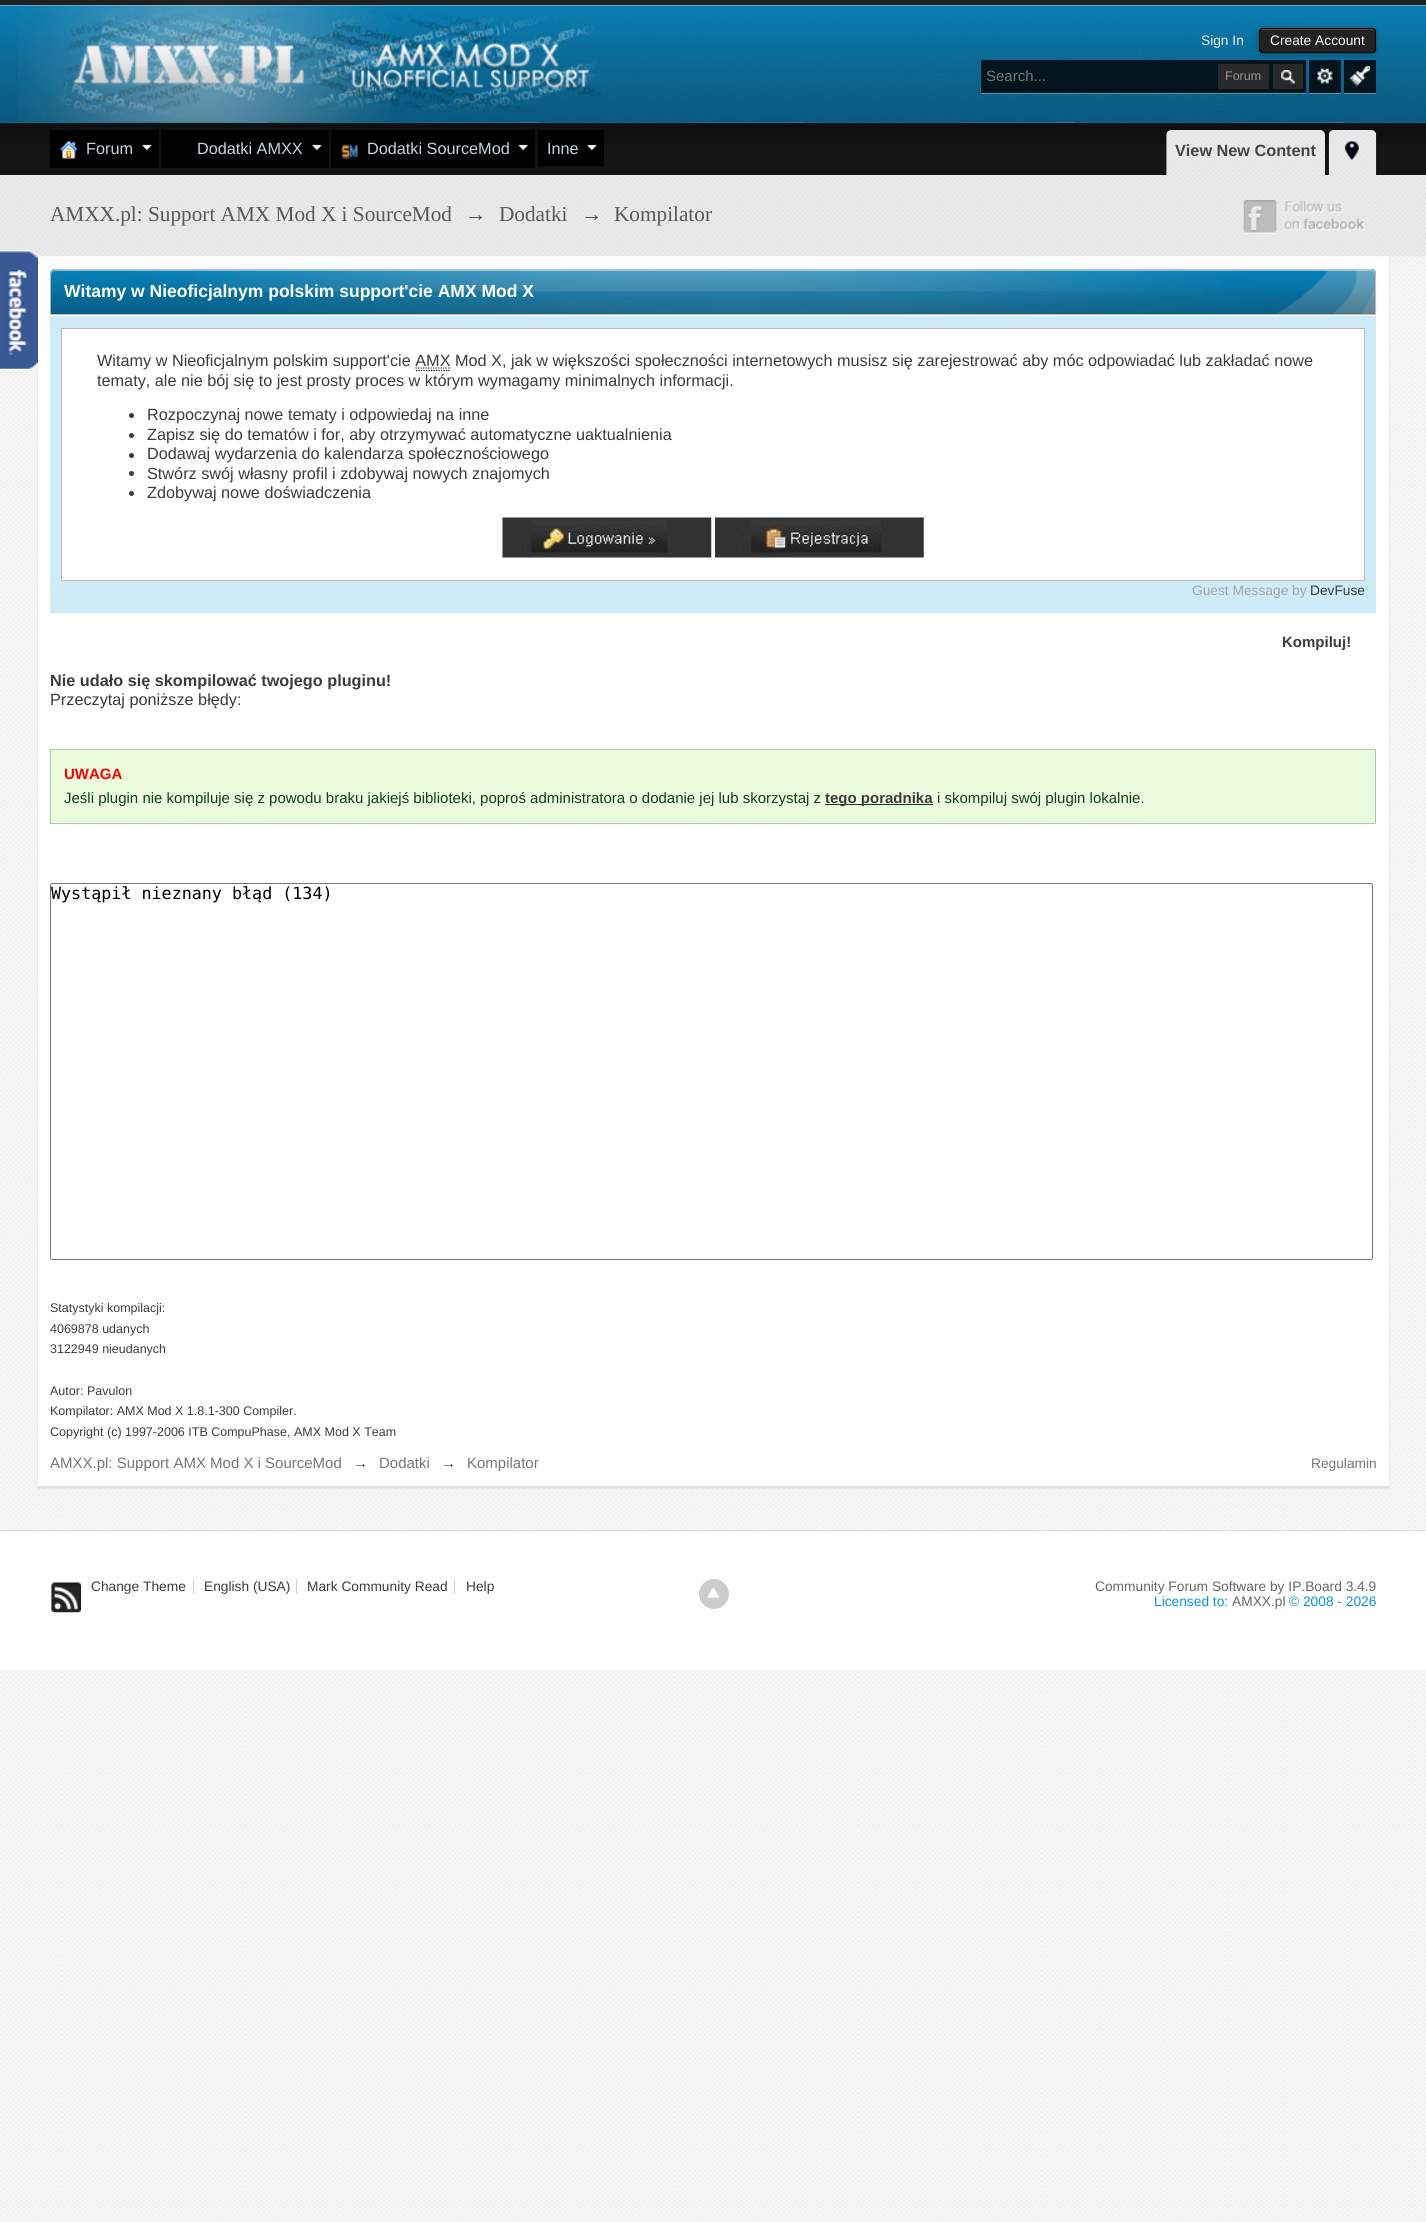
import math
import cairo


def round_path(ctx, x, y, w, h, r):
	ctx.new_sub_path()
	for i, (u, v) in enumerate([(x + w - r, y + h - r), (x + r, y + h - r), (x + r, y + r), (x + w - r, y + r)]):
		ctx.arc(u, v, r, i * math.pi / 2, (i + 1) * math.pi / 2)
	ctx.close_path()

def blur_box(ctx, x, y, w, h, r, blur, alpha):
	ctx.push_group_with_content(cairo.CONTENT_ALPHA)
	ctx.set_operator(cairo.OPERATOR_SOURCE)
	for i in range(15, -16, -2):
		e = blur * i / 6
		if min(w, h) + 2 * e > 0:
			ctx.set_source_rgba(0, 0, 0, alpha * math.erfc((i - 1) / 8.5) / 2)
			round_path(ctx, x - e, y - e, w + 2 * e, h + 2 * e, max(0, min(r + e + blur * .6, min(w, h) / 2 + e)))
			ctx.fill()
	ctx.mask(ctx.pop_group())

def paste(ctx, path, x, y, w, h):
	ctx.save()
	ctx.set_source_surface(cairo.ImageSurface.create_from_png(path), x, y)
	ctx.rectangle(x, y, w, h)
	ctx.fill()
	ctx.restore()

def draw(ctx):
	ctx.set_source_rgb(1, 1, 1)
	ctx.paint()
	paste(ctx, 'media/1.png', 0, 1670, 1426, 552)
	paste(ctx, 'media/2.png', 0, 256, 1426, 1274)
	ctx.set_source_rgb(0.859, 0.859, 0.859)
	blur_box(ctx, 38, 258, 1351, 1230, 0, 1, 1)
	ctx.set_source_rgb(1, 1, 1)
	ctx.rectangle(38, 256, 1351, 1230)
	ctx.fill()
	paste(ctx, 'media/18.png', 0, 175, 1426, 82)
	paste(ctx, 'media/3.png', 0, 250, 38, 120)
	ctx.set_source_rgb(0.125, 0.125, 0.125)
	ctx.rectangle(0, 0, 1426, 5)
	ctx.fill()
	ctx.set_source_rgb(0.031, 0.584, 0.839)
	ctx.rectangle(0, 5, 1426, 118)
	ctx.fill()
	paste(ctx, 'media/4.png', 0, 5, 1426, 118)
	ctx.set_source_rgba(1, 1, 1, 0.3)
	ctx.rectangle(0, 5, 1426, 1)
	ctx.fill()
	paste(ctx, 'media/5.png', 18, 5, 373, 118)
	paste(ctx, 'media/6.png', 59, 10, 542, 106)
	ctx.select_font_face('Liberation Sans')
	ctx.set_font_size(13.75)
	ctx.set_source_rgb(0.933, 0.933, 0.933)
	ctx.move_to(1201, 45)
	ctx.show_text('Sign In')
	ctx.set_source_rgb(0, 0, 0)
	blur_box(ctx, 1259, 29, 117, 25, 4, 2.5, 0.4)
	ctx.set_source_rgb(0.133, 0.133, 0.133)
	round_path(ctx, 1259, 28, 117, 25, 4)
	ctx.fill()
	ctx.set_source_rgb(0.306, 0.306, 0.306)
	ctx.new_path()
	ctx.move_to(1262, 30)
	ctx.line_to(1372, 30)
	ctx.line_to(1375, 31)
	ctx.line_to(1375, 32)
	ctx.curve_to(1375, 30, 1374, 29, 1372, 29)
	ctx.line_to(1262, 29)
	ctx.curve_to(1261, 29, 1260, 30, 1260, 32)
	ctx.curve_to(1260, 31, 1261, 30, 1262, 30)
	ctx.close_path()
	ctx.fill()
	round_path(ctx, 1259.5, 28.5, 116, 24, 3.5)
	ctx.set_source_rgb(0, 0, 0)
	ctx.set_line_width(1)
	ctx.stroke()
	ctx.set_source_rgb(1, 1, 1)
	ctx.move_to(1270, 45)
	ctx.show_text('Create Account')
	ctx.set_source_rgba(1, 1, 1, 0.3)
	ctx.new_path()
	ctx.move_to(981, 61)
	ctx.line_to(981, 83)
	ctx.curve_to(981, 84, 980, 94, 982, 94)
	ctx.line_to(1305, 94)
	ctx.curve_to(1306, 94, 1306, 93, 1306, 92)
	ctx.line_to(1305, 92)
	ctx.line_to(982, 92)
	ctx.curve_to(982, 92, 981, 92, 981, 91)
	ctx.close_path()
	ctx.fill()
	ctx.set_source_rgba(0, 0, 0, 0.8)
	round_path(ctx, 981, 60, 325, 33, 1)
	ctx.fill()
	ctx.set_font_size(15)
	ctx.set_source_rgb(0.467, 0.467, 0.467)
	ctx.move_to(986, 81)
	ctx.show_text('Search...')
	ctx.set_source_rgb(0.157, 0.157, 0.157)
	ctx.rectangle(1218, 64, 51, 25)
	ctx.fill()
	ctx.set_font_size(12.5)
	ctx.set_source_rgb(0.6, 0.6, 0.6)
	ctx.move_to(1225, 80)
	ctx.show_text('Forum')
	ctx.set_source_rgb(0.157, 0.157, 0.157)
	ctx.rectangle(1273, 64, 30, 25)
	ctx.fill()
	paste(ctx, 'media/7.png', 1281, 70, 14, 14)
	ctx.set_source_rgb(0.329, 0.565, 0.675)
	ctx.rectangle(1309, 93, 32, 1)
	ctx.fill()
	ctx.set_source_rgba(0, 0, 0, 0.8)
	ctx.rectangle(1309, 60, 32, 33)
	ctx.fill()
	paste(ctx, 'media/8.png', 1317, 68, 16, 16)
	ctx.set_source_rgb(0.329, 0.565, 0.675)
	ctx.rectangle(1344, 93, 32, 1)
	ctx.fill()
	ctx.set_source_rgba(0, 0, 0, 0.8)
	ctx.rectangle(1344, 60, 32, 33)
	ctx.fill()
	paste(ctx, 'media/9.png', 1349, 66, 21, 21)
	ctx.set_source_rgb(0.082, 0.082, 0.082)
	ctx.rectangle(0, 123, 1426, 52)
	ctx.fill()
	paste(ctx, 'media/10.png', 0, 122, 1426, 22)
	ctx.set_source_rgb(0, 0, 0)
	ctx.rectangle(50, 130, 109, 38)
	ctx.fill()
	paste(ctx, 'media/11.png', 142, 144, 10, 7)
	paste(ctx, 'media/12.png', 60, 141, 18, 18)
	ctx.set_font_size(16.25)
	ctx.set_source_rgb(0.773, 0.835, 0.886)
	ctx.move_to(86, 154)
	ctx.show_text('Forum')
	ctx.set_source_rgb(0, 0, 0)
	ctx.rectangle(161, 130, 168, 38)
	ctx.fill()
	paste(ctx, 'media/11.png', 312, 144, 10, 7)
	ctx.set_source_rgb(0.773, 0.835, 0.886)
	ctx.move_to(197, 154)
	ctx.show_text('Dodatki AMXX')
	ctx.set_source_rgb(0, 0, 0)
	ctx.rectangle(331, 130, 204, 38)
	ctx.fill()
	paste(ctx, 'media/13.png', 518, 144, 10, 7)
	paste(ctx, 'media/14.png', 341, 144, 17, 15)
	ctx.set_source_rgb(0.773, 0.835, 0.886)
	ctx.move_to(367, 154)
	ctx.show_text('Dodatki SourceMod')
	ctx.set_source_rgb(0, 0, 0)
	ctx.rectangle(538, 130, 66, 36)
	ctx.fill()
	paste(ctx, 'media/11.png', 587, 144, 10, 7)
	ctx.set_source_rgb(0.773, 0.835, 0.886)
	ctx.move_to(547, 154)
	ctx.show_text('Inne')
	paste(ctx, 'media/15.png', 1166, 130, 159, 45)
	ctx.select_font_face('Liberation Sans', cairo.FONT_SLANT_NORMAL, cairo.FONT_WEIGHT_BOLD)
	ctx.set_source_rgb(0.267, 0.267, 0.267)
	ctx.move_to(1175, 156)
	ctx.show_text('View New Content')
	paste(ctx, 'media/16.png', 1328, 130, 49, 45)
	paste(ctx, 'media/17.png', 1344, 141, 15, 19)
	ctx.select_font_face('Liberation Serif')
	ctx.set_font_size(21.25)
	ctx.set_source_rgb(0.345, 0.345, 0.345)
	ctx.move_to(50, 221)
	ctx.show_text('AMXX.pl: Support AMX Mod X i SourceMod')
	ctx.select_font_face('Liberation Sans')
	ctx.set_source_rgb(0.267, 0.267, 0.267)
	ctx.move_to(465, 221)
	ctx.show_text('→')
	ctx.select_font_face('Liberation Serif')
	ctx.set_source_rgb(0.345, 0.345, 0.345)
	ctx.move_to(499, 221)
	ctx.show_text('Dodatki')
	ctx.select_font_face('Liberation Sans')
	ctx.set_source_rgb(0.267, 0.267, 0.267)
	ctx.move_to(581, 221)
	ctx.show_text('→')
	ctx.select_font_face('Liberation Serif')
	ctx.set_source_rgb(0.345, 0.345, 0.345)
	ctx.move_to(614, 221)
	ctx.show_text('Kompilator')
	paste(ctx, 'media/19.png', 1243, 200, 132, 34)
	paste(ctx, 'media/20.png', 1243, 200, 121, 34)
	ctx.set_source_rgb(0.031, 0.584, 0.839)
	ctx.new_path()
	ctx.move_to(55, 269)
	ctx.line_to(1371, 269)
	ctx.curve_to(1374, 269, 1376, 271, 1376, 274)
	ctx.line_to(1376, 315)
	ctx.line_to(50, 315)
	ctx.line_to(50, 274)
	ctx.curve_to(50, 271, 52, 269, 55, 269)
	ctx.close_path()
	ctx.fill()
	paste(ctx, 'media/21.png', 50, 268, 1327, 47)
	ctx.set_source_rgba(1, 1, 1, 0.5)
	ctx.new_path()
	ctx.move_to(55, 271)
	ctx.line_to(1371, 271)
	ctx.curve_to(1373, 271, 1375, 273, 1375, 275)
	ctx.line_to(1375, 274)
	ctx.curve_to(1375, 272, 1373, 270, 1371, 270)
	ctx.line_to(55, 270)
	ctx.curve_to(53, 270, 51, 272, 51, 274)
	ctx.line_to(51, 275)
	ctx.curve_to(51, 273, 53, 271, 55, 271)
	ctx.close_path()
	ctx.fill()
	ctx.new_path()
	ctx.move_to(55, 269.5)
	ctx.line_to(1371, 269.5)
	ctx.curve_to(1373.5, 269.5, 1375.5, 271.5, 1375.5, 274)
	ctx.line_to(1375.5, 314.5)
	ctx.line_to(50.5, 314.5)
	ctx.line_to(50.5, 274)
	ctx.curve_to(50.5, 271.5, 52.5, 269.5, 55, 269.5)
	ctx.close_path()
	ctx.set_source_rgb(0.733, 0.733, 0.733)
	ctx.stroke()
	ctx.select_font_face('Liberation Sans', cairo.FONT_SLANT_NORMAL, cairo.FONT_WEIGHT_BOLD)
	ctx.set_font_size(17.5)
	ctx.set_source_rgb(1, 1, 1)
	ctx.move_to(64, 297)
	ctx.show_text('Witamy w Nieoficjalnym polskim support\'cie AMX Mod X')
	ctx.set_source_rgb(0.808, 0.918, 0.969)
	ctx.rectangle(50, 316, 1326, 297)
	ctx.fill()
	ctx.set_source_rgb(1, 1, 1)
	ctx.rectangle(61.5, 328.5, 1303, 252)
	ctx.fill_preserve()
	ctx.set_source_rgb(0.733, 0.733, 0.733)
	ctx.stroke()
	ctx.select_font_face('Liberation Sans')
	ctx.set_font_size(16.25)
	ctx.set_source_rgb(0.235, 0.235, 0.235)
	ctx.move_to(97, 366)
	ctx.show_text('Witamy w Nieoficjalnym polskim support\'cie AMX Mod X, jak w większości społeczności internetowych musisz się zarejestrować aby móc odpowiadać lub zakładać nowe')
	ctx.new_path()
	ctx.move_to(415.5, 368)
	ctx.line_to(451, 368)
	ctx.set_source_rgb(0.239, 0.239, 0.239)
	ctx.set_line_width(1.2)
	ctx.set_dash([1.25, 1.25])
	ctx.stroke()
	ctx.new_path()
	ctx.move_to(416, 370.5)
	ctx.line_to(451, 370.5)
	ctx.set_source_rgb(0, 0, 0)
	ctx.stroke()
	ctx.set_source_rgb(0.235, 0.235, 0.235)
	ctx.move_to(97, 386)
	ctx.show_text('tematy, ale nie bój się to jest prosty proces w którym wymagamy minimalnych informacji.')
	ctx.set_source_rgb(0.239, 0.239, 0.239)
	ctx.new_path()
	ctx.arc(131.5, 415.5, 2.5, 0, 2 * math.pi)
	ctx.fill()
	ctx.set_source_rgb(0.235, 0.235, 0.235)
	ctx.move_to(147, 420)
	ctx.show_text('Rozpoczynaj nowe tematy i odpowiedaj na inne')
	ctx.set_source_rgb(0.239, 0.239, 0.239)
	ctx.new_path()
	ctx.arc(131.5, 435.5, 2.5, 0, 2 * math.pi)
	ctx.fill()
	ctx.set_source_rgb(0.235, 0.235, 0.235)
	ctx.move_to(147, 440)
	ctx.show_text('Zapisz się do tematów i for, aby otrzymywać automatyczne uaktualnienia')
	ctx.set_source_rgb(0.239, 0.239, 0.239)
	ctx.new_path()
	ctx.arc(131.5, 455.5, 2.5, 0, 2 * math.pi)
	ctx.fill()
	ctx.set_source_rgb(0.235, 0.235, 0.235)
	ctx.move_to(147, 459)
	ctx.show_text('Dodawaj wydarzenia do kalendarza społecznościowego')
	ctx.set_source_rgb(0.239, 0.239, 0.239)
	ctx.new_path()
	ctx.arc(131.5, 473.5, 2.5, 0, 2 * math.pi)
	ctx.fill()
	ctx.set_source_rgb(0.235, 0.235, 0.235)
	ctx.move_to(147, 479)
	ctx.show_text('Stwórz swój własny profil i zdobywaj nowych znajomych')
	ctx.set_source_rgb(0.239, 0.239, 0.239)
	ctx.new_path()
	ctx.arc(131.5, 493.5, 2.5, 0, 2 * math.pi)
	ctx.fill()
	ctx.set_source_rgb(0.235, 0.235, 0.235)
	ctx.move_to(147, 498)
	ctx.show_text('Zdobywaj nowe doświadczenia')
	paste(ctx, 'media/22.png', 502, 517, 210, 41)
	paste(ctx, 'media/23.png', 715, 517, 209, 41)
	ctx.set_font_size(13.75)
	ctx.set_source_rgb(0.643, 0.643, 0.643)
	ctx.move_to(1192, 595)
	ctx.show_text('Guest Message by')
	ctx.set_source_rgb(0.235, 0.235, 0.235)
	ctx.move_to(1310, 595)
	ctx.show_text('DevFuse')
	ctx.select_font_face('Liberation Sans', cairo.FONT_SLANT_NORMAL, cairo.FONT_WEIGHT_BOLD)
	ctx.set_font_size(15)
	ctx.move_to(1282, 647)
	ctx.show_text('Kompiluj!')
	ctx.set_font_size(16.25)
	ctx.move_to(50, 686)
	ctx.show_text('Nie udało się skompilować twojego pluginu!')
	ctx.select_font_face('Liberation Sans')
	ctx.move_to(50, 705)
	ctx.show_text('Przeczytaj poniższe błędy:')
	ctx.set_source_rgb(0.922, 0.988, 0.875)
	ctx.rectangle(50.5, 749.5, 1325, 74)
	ctx.fill_preserve()
	ctx.set_source_rgb(0.643, 0.812, 0.643)
	ctx.set_line_width(1)
	ctx.set_dash([])
	ctx.stroke()
	ctx.select_font_face('Liberation Sans', cairo.FONT_SLANT_NORMAL, cairo.FONT_WEIGHT_BOLD)
	ctx.set_font_size(15)
	ctx.set_source_rgb(1, 0, 0)
	ctx.move_to(64, 779)
	ctx.show_text('UWAGA')
	ctx.select_font_face('Liberation Sans')
	ctx.set_source_rgb(0.055, 0.267, 0.055)
	ctx.move_to(64, 803)
	ctx.show_text('Jeśli plugin nie kompiluje się z powodu braku jakiejś biblioteki, poproś administratora o dodanie jej lub skorzystaj z')
	ctx.rectangle(825, 804, 108, 1)
	ctx.fill()
	ctx.select_font_face('Liberation Sans', cairo.FONT_SLANT_NORMAL, cairo.FONT_WEIGHT_BOLD)
	ctx.set_source_rgb(0.235, 0.235, 0.235)
	ctx.move_to(825, 803)
	ctx.show_text('tego poradnika')
	ctx.select_font_face('Liberation Sans')
	ctx.set_source_rgb(0.055, 0.267, 0.055)
	ctx.move_to(937, 803)
	ctx.show_text('i skompiluj swój plugin lokalnie.')
	ctx.set_source_rgb(0.988, 0.988, 0.988)
	ctx.rectangle(50, 883, 1326, 382)
	ctx.fill()
	ctx.set_source_rgb(1, 1, 1)
	round_path(ctx, 50.5, 883.5, 1322, 376, 2)
	ctx.fill_preserve()
	ctx.set_source_rgb(0.463, 0.463, 0.463)
	ctx.stroke()
	ctx.select_font_face('DejaVu Sans Mono')
	ctx.set_font_size(16.7)
	ctx.set_source_rgb(0, 0, 0)
	ctx.move_to(51, 899)
	ctx.show_text('Wystąpił nieznany błąd (134)')
	ctx.select_font_face('Liberation Sans')
	ctx.set_font_size(12.5)
	ctx.set_source_rgb(0.235, 0.235, 0.235)
	for x, y, s in [
		(50, 1312, 'Statystyki kompilacji:'),
		(50, 1333, '4069878 udanych'),
		(50, 1353, '3122949 nieudanych'),
		(50, 1395, 'Autor:'),
		(87, 1395, 'Pavulon'),
		(50, 1415, 'Kompilator: AMX Mod X 1.8.1-300 Compiler.'),
		(50, 1436, 'Copyright (c) 1997-2006 ITB CompuPhase,'),
		(294, 1436, 'AMX Mod X Team'),
	]:
		ctx.move_to(x, y)
		ctx.show_text(s)
	ctx.set_font_size(15)
	ctx.set_source_rgb(0.467, 0.467, 0.467)
	ctx.move_to(50, 1468)
	ctx.show_text('AMXX.pl: Support AMX Mod X i SourceMod')
	ctx.set_source_rgb(0.267, 0.267, 0.267)
	ctx.move_to(353, 1468)
	ctx.show_text('→')
	ctx.set_source_rgb(0.467, 0.467, 0.467)
	ctx.move_to(379, 1468)
	ctx.show_text('Dodatki')
	ctx.set_source_rgb(0.267, 0.267, 0.267)
	ctx.move_to(441, 1468)
	ctx.show_text('→')
	ctx.set_source_rgb(0.467, 0.467, 0.467)
	ctx.move_to(467, 1468)
	ctx.show_text('Kompilator')
	ctx.set_font_size(13.75)
	ctx.move_to(1311, 1468)
	ctx.show_text('Regulamin')
	ctx.set_source_rgb(0.867, 0.867, 0.867)
	ctx.rectangle(0, 1530, 1426, 1)
	ctx.fill()
	paste(ctx, 'media/24.png', 51, 1582, 31, 31)
	ctx.set_source_rgb(0.235, 0.235, 0.235)
	ctx.move_to(91, 1591)
	ctx.show_text('Change Theme')
	ctx.set_source_rgb(0.816, 0.816, 0.816)
	ctx.rectangle(193, 1579, 1, 15)
	ctx.fill()
	ctx.set_source_rgb(0.235, 0.235, 0.235)
	ctx.move_to(204, 1591)
	ctx.show_text('English (USA)')
	ctx.set_source_rgb(0.816, 0.816, 0.816)
	ctx.rectangle(296, 1579, 1, 15)
	ctx.fill()
	ctx.set_source_rgb(0.235, 0.235, 0.235)
	ctx.move_to(307, 1591)
	ctx.show_text('Mark Community Read')
	ctx.set_source_rgb(0.816, 0.816, 0.816)
	ctx.rectangle(454, 1579, 1, 15)
	ctx.fill()
	ctx.set_source_rgb(0.235, 0.235, 0.235)
	ctx.move_to(466, 1591)
	ctx.show_text('Help')
	ctx.set_source_rgb(0.8, 0.8, 0.8)
	ctx.new_path()
	ctx.arc(714, 1594, 15, 0, 2 * math.pi)
	ctx.fill()
	paste(ctx, 'media/25.png', 707, 1587, 13, 12)
	ctx.set_source_rgb(0.404, 0.404, 0.404)
	ctx.move_to(1095, 1591)
	ctx.show_text('Community Forum Software by IP.Board 3.4.9')
	ctx.set_source_rgb(0.031, 0.584, 0.839)
	ctx.move_to(1154, 1606)
	ctx.show_text('Licensed to:')
	ctx.set_source_rgb(0.404, 0.404, 0.404)
	ctx.move_to(1232, 1606)
	ctx.show_text('AMXX.pl')
	ctx.set_source_rgb(0.031, 0.584, 0.839)
	ctx.move_to(1289, 1606)
	ctx.show_text('© 2008 - 2026')


surface = cairo.ImageSurface(cairo.FORMAT_RGB24, 1426, 2222)
ctx = cairo.Context(surface)
options = cairo.FontOptions()
options.set_hint_metrics(cairo.HINT_METRICS_OFF)
options.set_hint_style(cairo.HINT_STYLE_NONE)
ctx.set_font_options(options)
ctx.set_miter_limit(4)
draw(ctx)
surface.write_to_png('image.png')
